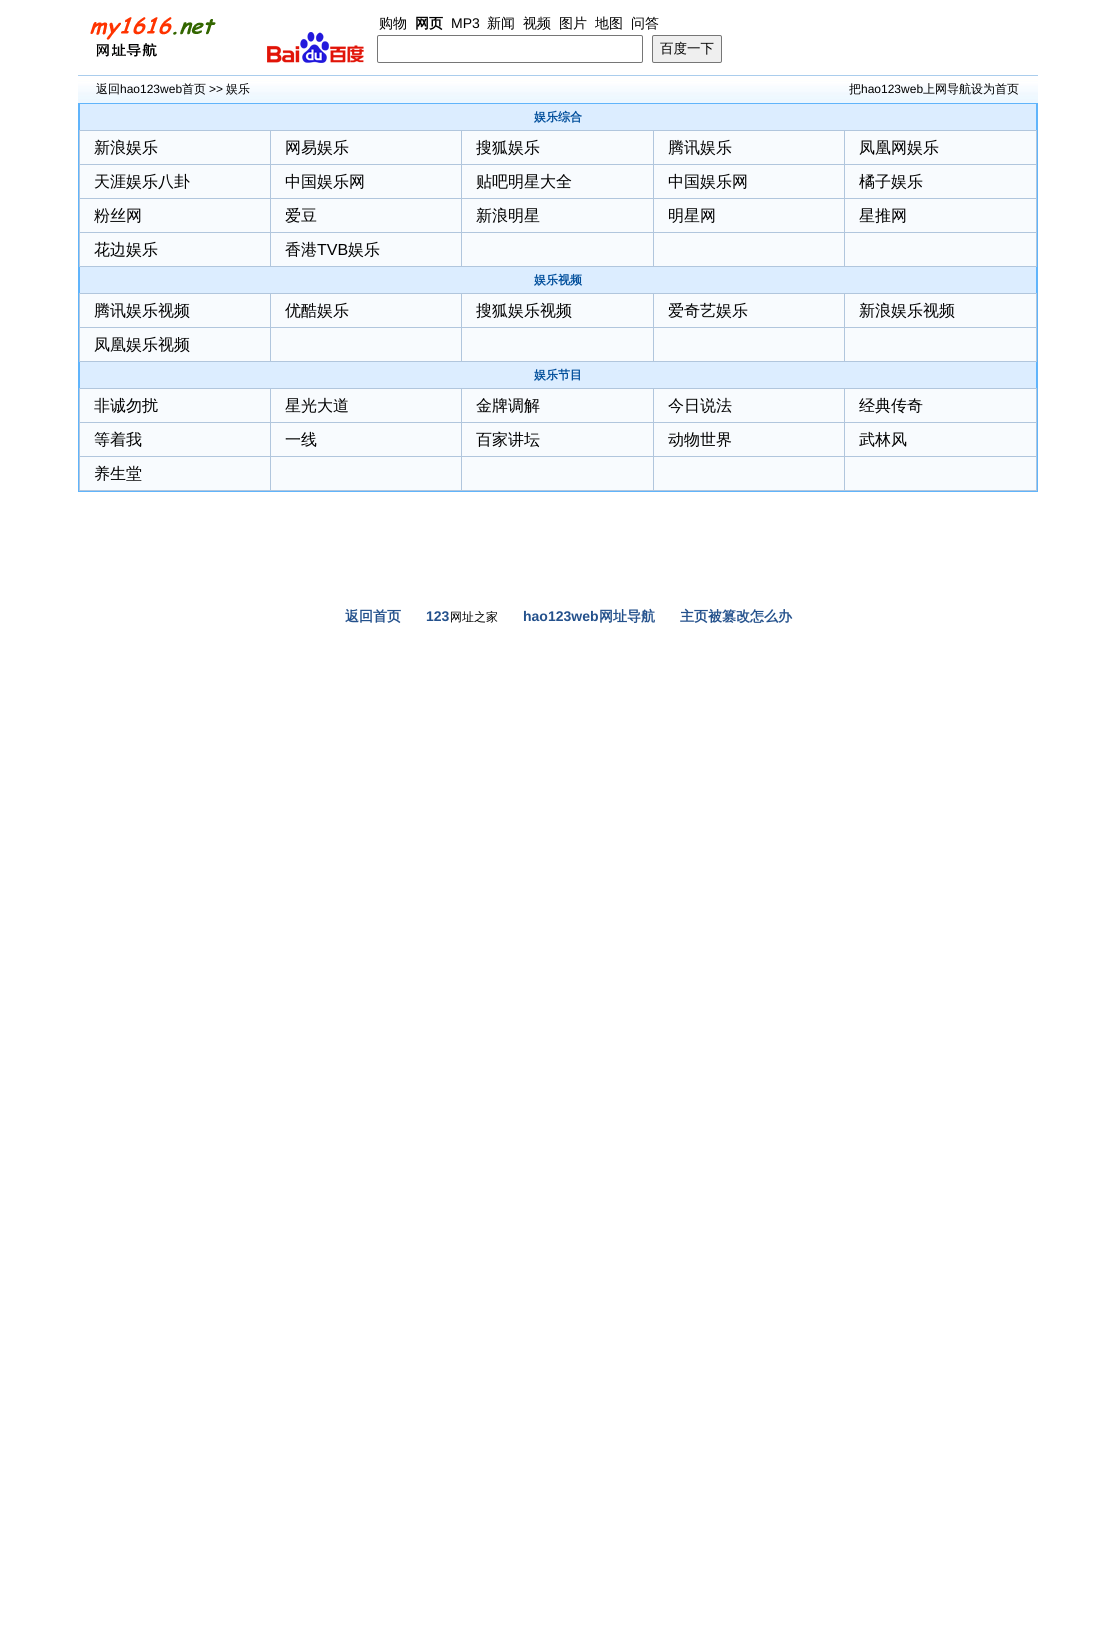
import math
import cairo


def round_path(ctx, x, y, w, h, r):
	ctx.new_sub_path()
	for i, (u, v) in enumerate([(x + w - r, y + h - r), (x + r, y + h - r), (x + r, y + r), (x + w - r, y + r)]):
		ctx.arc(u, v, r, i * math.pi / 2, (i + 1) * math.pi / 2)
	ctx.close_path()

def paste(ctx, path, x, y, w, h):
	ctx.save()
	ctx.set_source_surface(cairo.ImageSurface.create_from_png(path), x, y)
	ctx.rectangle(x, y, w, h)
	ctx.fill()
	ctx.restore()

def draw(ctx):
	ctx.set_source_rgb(1, 1, 1)
	ctx.paint()
	paste(ctx, 'media/1.png', 90, 17, 126, 40)
	ctx.select_font_face('WenQuanYi Zen Hei Medium')
	ctx.set_font_size(14)
	ctx.set_source_rgb(0, 0, 0)
	ctx.move_to(379, 28)
	ctx.show_text('购物')
	ctx.select_font_face('WenQuanYi Zen Hei', cairo.FONT_SLANT_NORMAL, cairo.FONT_WEIGHT_BOLD)
	ctx.move_to(415, 28)
	ctx.show_text('网页')
	ctx.select_font_face('Liberation Sans')
	ctx.move_to(451, 28)
	ctx.show_text('MP3')
	ctx.select_font_face('WenQuanYi Zen Hei Medium')
	for x, y, s in [
		(487, 28, '新闻'),
		(523, 28, '视频'),
		(559, 28, '图片'),
		(595, 28, '地图'),
		(631, 28, '问答'),
	]:
		ctx.move_to(x, y)
		ctx.show_text(s)
	paste(ctx, 'media/2.png', 267, 32, 97, 31)
	round_path(ctx, 377.5, 35.5, 265, 27, 1.5)
	ctx.set_source_rgb(0.463, 0.463, 0.463)
	ctx.set_line_width(1)
	ctx.stroke()
	ctx.set_source_rgb(0.937, 0.937, 0.937)
	round_path(ctx, 652.5, 35.5, 69, 27, 1.5)
	ctx.fill_preserve()
	ctx.set_source_rgb(0.463, 0.463, 0.463)
	ctx.stroke()
	ctx.set_font_size(13.5)
	ctx.set_source_rgb(0, 0, 0)
	ctx.move_to(660, 53)
	ctx.show_text('百度一下')
	paste(ctx, 'media/3.png', 78, 75, 960, 28)
	ctx.set_font_size(12)
	ctx.move_to(96, 93)
	ctx.show_text('返回')
	ctx.select_font_face('Liberation Sans')
	ctx.move_to(120, 93)
	ctx.show_text('hao123web')
	ctx.select_font_face('WenQuanYi Zen Hei Medium')
	ctx.move_to(182, 93)
	ctx.show_text('首页')
	ctx.select_font_face('Liberation Sans')
	ctx.move_to(209, 93)
	ctx.show_text('>>')
	ctx.select_font_face('WenQuanYi Zen Hei Medium')
	ctx.move_to(226, 93)
	ctx.show_text('娱乐')
	ctx.move_to(849, 93)
	ctx.show_text('把')
	ctx.select_font_face('Liberation Sans')
	ctx.move_to(861, 93)
	ctx.show_text('hao123web')
	ctx.select_font_face('WenQuanYi Zen Hei Medium')
	ctx.move_to(923, 93)
	ctx.show_text('上网导航设为首页')
	ctx.set_source_rgb(0.863, 0.929, 1)
	ctx.rectangle(80, 104, 956, 284)
	ctx.fill()
	ctx.rectangle(78.5, 103.5, 959, 388)
	ctx.set_source_rgb(0.376, 0.706, 0.984)
	ctx.stroke()
	ctx.rectangle(1036, 104, 1, 26)
	ctx.fill()
	ctx.rectangle(79, 104, 1, 26)
	ctx.fill()
	ctx.select_font_face('WenQuanYi Zen Hei', cairo.FONT_SLANT_NORMAL, cairo.FONT_WEIGHT_BOLD)
	ctx.set_source_rgb(0, 0.306, 0.608)
	ctx.move_to(534, 121)
	ctx.show_text('娱乐综合')
	ctx.set_source_rgb(0.694, 0.776, 0.867)
	ctx.rectangle(79, 130, 958, 137)
	ctx.fill()
	ctx.set_source_rgb(0.969, 0.984, 0.996)
	ctx.rectangle(80, 131, 190, 33)
	ctx.fill()
	ctx.select_font_face('WenQuanYi Zen Hei Medium')
	ctx.set_font_size(16)
	ctx.set_source_rgb(0, 0, 0)
	ctx.move_to(94, 153)
	ctx.show_text('新浪娱乐')
	ctx.set_source_rgb(0.969, 0.984, 0.996)
	ctx.rectangle(271, 131, 190, 33)
	ctx.fill()
	ctx.set_source_rgb(0, 0, 0)
	ctx.move_to(285, 153)
	ctx.show_text('网易娱乐')
	ctx.set_source_rgb(0.969, 0.984, 0.996)
	ctx.rectangle(462, 131, 191, 33)
	ctx.fill()
	ctx.set_source_rgb(0, 0, 0)
	ctx.move_to(476, 153)
	ctx.show_text('搜狐娱乐')
	ctx.set_source_rgb(0.969, 0.984, 0.996)
	ctx.rectangle(654, 131, 190, 33)
	ctx.fill()
	ctx.set_source_rgb(0, 0, 0)
	ctx.move_to(668, 153)
	ctx.show_text('腾讯娱乐')
	ctx.set_source_rgb(0.969, 0.984, 0.996)
	ctx.rectangle(845, 131, 191, 33)
	ctx.fill()
	ctx.set_source_rgb(0, 0, 0)
	ctx.move_to(859, 153)
	ctx.show_text('凤凰网娱乐')
	ctx.set_source_rgb(0.969, 0.984, 0.996)
	ctx.rectangle(80, 165, 190, 33)
	ctx.fill()
	ctx.set_source_rgb(0, 0, 0)
	ctx.move_to(94, 187)
	ctx.show_text('天涯娱乐八卦')
	ctx.set_source_rgb(0.969, 0.984, 0.996)
	ctx.rectangle(271, 165, 190, 33)
	ctx.fill()
	ctx.set_source_rgb(0, 0, 0)
	ctx.move_to(285, 187)
	ctx.show_text('中国娱乐网')
	ctx.set_source_rgb(0.969, 0.984, 0.996)
	ctx.rectangle(462, 165, 191, 33)
	ctx.fill()
	ctx.set_source_rgb(0, 0, 0)
	ctx.move_to(476, 187)
	ctx.show_text('贴吧明星大全')
	ctx.set_source_rgb(0.969, 0.984, 0.996)
	ctx.rectangle(654, 165, 190, 33)
	ctx.fill()
	ctx.set_source_rgb(0, 0, 0)
	ctx.move_to(668, 187)
	ctx.show_text('中国娱乐网')
	ctx.set_source_rgb(0.969, 0.984, 0.996)
	ctx.rectangle(845, 165, 191, 33)
	ctx.fill()
	ctx.set_source_rgb(0, 0, 0)
	ctx.move_to(859, 187)
	ctx.show_text('橘子娱乐')
	ctx.set_source_rgb(0.969, 0.984, 0.996)
	ctx.rectangle(80, 199, 190, 33)
	ctx.fill()
	ctx.set_source_rgb(0, 0, 0)
	ctx.move_to(94, 221)
	ctx.show_text('粉丝网')
	ctx.set_source_rgb(0.969, 0.984, 0.996)
	ctx.rectangle(271, 199, 190, 33)
	ctx.fill()
	ctx.set_source_rgb(0, 0, 0)
	ctx.move_to(285, 221)
	ctx.show_text('爱豆')
	ctx.set_source_rgb(0.969, 0.984, 0.996)
	ctx.rectangle(462, 199, 191, 33)
	ctx.fill()
	ctx.set_source_rgb(0, 0, 0)
	ctx.move_to(476, 221)
	ctx.show_text('新浪明星')
	ctx.set_source_rgb(0.969, 0.984, 0.996)
	ctx.rectangle(654, 199, 190, 33)
	ctx.fill()
	ctx.set_source_rgb(0, 0, 0)
	ctx.move_to(668, 221)
	ctx.show_text('明星网')
	ctx.set_source_rgb(0.969, 0.984, 0.996)
	ctx.rectangle(845, 199, 191, 33)
	ctx.fill()
	ctx.set_source_rgb(0, 0, 0)
	ctx.move_to(859, 221)
	ctx.show_text('星推网')
	ctx.set_source_rgb(0.969, 0.984, 0.996)
	ctx.rectangle(80, 233, 190, 33)
	ctx.fill()
	ctx.set_source_rgb(0, 0, 0)
	ctx.move_to(94, 255)
	ctx.show_text('花边娱乐')
	ctx.set_source_rgb(0.969, 0.984, 0.996)
	ctx.rectangle(271, 233, 190, 33)
	ctx.fill()
	ctx.set_source_rgb(0, 0, 0)
	ctx.move_to(285, 255)
	ctx.show_text('香港')
	ctx.select_font_face('Liberation Sans')
	ctx.move_to(317, 255)
	ctx.show_text('TVB')
	ctx.select_font_face('WenQuanYi Zen Hei Medium')
	ctx.move_to(348, 255)
	ctx.show_text('娱乐')
	ctx.set_source_rgb(0.969, 0.984, 0.996)
	ctx.rectangle(462, 233, 191, 33)
	ctx.rectangle(654, 233, 190, 33)
	ctx.rectangle(845, 233, 191, 33)
	ctx.fill()
	ctx.set_source_rgb(0.376, 0.706, 0.984)
	ctx.rectangle(1036, 267, 1, 26)
	ctx.rectangle(79, 267, 1, 26)
	ctx.fill()
	ctx.select_font_face('WenQuanYi Zen Hei', cairo.FONT_SLANT_NORMAL, cairo.FONT_WEIGHT_BOLD)
	ctx.set_font_size(12)
	ctx.set_source_rgb(0, 0.306, 0.608)
	ctx.move_to(534, 284)
	ctx.show_text('娱乐视频')
	ctx.set_source_rgb(0.694, 0.776, 0.867)
	ctx.rectangle(79, 293, 958, 69)
	ctx.fill()
	ctx.set_source_rgb(0.969, 0.984, 0.996)
	ctx.rectangle(80, 294, 190, 33)
	ctx.fill()
	ctx.select_font_face('WenQuanYi Zen Hei Medium')
	ctx.set_font_size(16)
	ctx.set_source_rgb(0, 0, 0)
	ctx.move_to(94, 316)
	ctx.show_text('腾讯娱乐视频')
	ctx.set_source_rgb(0.969, 0.984, 0.996)
	ctx.rectangle(271, 294, 190, 33)
	ctx.fill()
	ctx.set_source_rgb(0, 0, 0)
	ctx.move_to(285, 316)
	ctx.show_text('优酷娱乐')
	ctx.set_source_rgb(0.969, 0.984, 0.996)
	ctx.rectangle(462, 294, 191, 33)
	ctx.fill()
	ctx.set_source_rgb(0, 0, 0)
	ctx.move_to(476, 316)
	ctx.show_text('搜狐娱乐视频')
	ctx.set_source_rgb(0.969, 0.984, 0.996)
	ctx.rectangle(654, 294, 190, 33)
	ctx.fill()
	ctx.set_source_rgb(0, 0, 0)
	ctx.move_to(668, 316)
	ctx.show_text('爱奇艺娱乐')
	ctx.set_source_rgb(0.969, 0.984, 0.996)
	ctx.rectangle(845, 294, 191, 33)
	ctx.fill()
	ctx.set_source_rgb(0, 0, 0)
	ctx.move_to(859, 316)
	ctx.show_text('新浪娱乐视频')
	ctx.set_source_rgb(0.969, 0.984, 0.996)
	ctx.rectangle(80, 328, 190, 33)
	ctx.fill()
	ctx.set_source_rgb(0, 0, 0)
	ctx.move_to(94, 350)
	ctx.show_text('凤凰娱乐视频')
	ctx.set_source_rgb(0.969, 0.984, 0.996)
	ctx.rectangle(271, 328, 190, 33)
	ctx.rectangle(462, 328, 191, 33)
	ctx.rectangle(654, 328, 190, 33)
	ctx.rectangle(845, 328, 191, 33)
	ctx.fill()
	ctx.set_source_rgb(0.376, 0.706, 0.984)
	ctx.rectangle(1036, 362, 1, 26)
	ctx.rectangle(79, 362, 1, 26)
	ctx.fill()
	ctx.select_font_face('WenQuanYi Zen Hei', cairo.FONT_SLANT_NORMAL, cairo.FONT_WEIGHT_BOLD)
	ctx.set_font_size(12)
	ctx.set_source_rgb(0, 0.306, 0.608)
	ctx.move_to(534, 379)
	ctx.show_text('娱乐节目')
	ctx.set_source_rgb(0.694, 0.776, 0.867)
	ctx.rectangle(79, 388, 958, 103)
	ctx.fill()
	ctx.set_source_rgb(0.969, 0.984, 0.996)
	ctx.rectangle(80, 389, 190, 33)
	ctx.fill()
	ctx.select_font_face('WenQuanYi Zen Hei Medium')
	ctx.set_font_size(16)
	ctx.set_source_rgb(0, 0, 0)
	ctx.move_to(94, 411)
	ctx.show_text('非诚勿扰')
	ctx.set_source_rgb(0.969, 0.984, 0.996)
	ctx.rectangle(271, 389, 190, 33)
	ctx.fill()
	ctx.set_source_rgb(0, 0, 0)
	ctx.move_to(285, 411)
	ctx.show_text('星光大道')
	ctx.set_source_rgb(0.969, 0.984, 0.996)
	ctx.rectangle(462, 389, 191, 33)
	ctx.fill()
	ctx.set_source_rgb(0, 0, 0)
	ctx.move_to(476, 411)
	ctx.show_text('金牌调解')
	ctx.set_source_rgb(0.969, 0.984, 0.996)
	ctx.rectangle(654, 389, 190, 33)
	ctx.fill()
	ctx.set_source_rgb(0, 0, 0)
	ctx.move_to(668, 411)
	ctx.show_text('今日说法')
	ctx.set_source_rgb(0.969, 0.984, 0.996)
	ctx.rectangle(845, 389, 191, 33)
	ctx.fill()
	ctx.set_source_rgb(0, 0, 0)
	ctx.move_to(859, 411)
	ctx.show_text('经典传奇')
	ctx.set_source_rgb(0.969, 0.984, 0.996)
	ctx.rectangle(80, 423, 190, 33)
	ctx.fill()
	ctx.set_source_rgb(0, 0, 0)
	ctx.move_to(94, 445)
	ctx.show_text('等着我')
	ctx.set_source_rgb(0.969, 0.984, 0.996)
	ctx.rectangle(271, 423, 190, 33)
	ctx.fill()
	ctx.set_source_rgb(0, 0, 0)
	ctx.move_to(285, 445)
	ctx.show_text('一线')
	ctx.set_source_rgb(0.969, 0.984, 0.996)
	ctx.rectangle(462, 423, 191, 33)
	ctx.fill()
	ctx.set_source_rgb(0, 0, 0)
	ctx.move_to(476, 445)
	ctx.show_text('百家讲坛')
	ctx.set_source_rgb(0.969, 0.984, 0.996)
	ctx.rectangle(654, 423, 190, 33)
	ctx.fill()
	ctx.set_source_rgb(0, 0, 0)
	ctx.move_to(668, 445)
	ctx.show_text('动物世界')
	ctx.set_source_rgb(0.969, 0.984, 0.996)
	ctx.rectangle(845, 423, 191, 33)
	ctx.fill()
	ctx.set_source_rgb(0, 0, 0)
	ctx.move_to(859, 445)
	ctx.show_text('武林风')
	ctx.set_source_rgb(0.969, 0.984, 0.996)
	ctx.rectangle(80, 457, 190, 33)
	ctx.fill()
	ctx.set_source_rgb(0, 0, 0)
	ctx.move_to(94, 479)
	ctx.show_text('养生堂')
	ctx.set_source_rgb(0.969, 0.984, 0.996)
	ctx.rectangle(271, 457, 190, 33)
	ctx.rectangle(462, 457, 191, 33)
	ctx.rectangle(654, 457, 190, 33)
	ctx.rectangle(845, 457, 191, 33)
	ctx.fill()
	ctx.select_font_face('WenQuanYi Zen Hei', cairo.FONT_SLANT_NORMAL, cairo.FONT_WEIGHT_BOLD)
	ctx.set_font_size(14)
	ctx.set_source_rgb(0.141, 0.318, 0.549)
	ctx.move_to(345, 621)
	ctx.show_text('返回首页')
	ctx.select_font_face('Liberation Sans', cairo.FONT_SLANT_NORMAL, cairo.FONT_WEIGHT_BOLD)
	ctx.move_to(426, 621)
	ctx.show_text('123')
	ctx.select_font_face('WenQuanYi Zen Hei Medium')
	ctx.set_font_size(12)
	ctx.set_source_rgb(0, 0, 0)
	ctx.move_to(450, 621)
	ctx.show_text('网址之家')
	ctx.select_font_face('Liberation Sans', cairo.FONT_SLANT_NORMAL, cairo.FONT_WEIGHT_BOLD)
	ctx.set_font_size(14)
	ctx.set_source_rgb(0.141, 0.318, 0.549)
	ctx.move_to(523, 621)
	ctx.show_text('hao123web')
	ctx.select_font_face('WenQuanYi Zen Hei', cairo.FONT_SLANT_NORMAL, cairo.FONT_WEIGHT_BOLD)
	ctx.move_to(599, 621)
	ctx.show_text('网址导航')
	ctx.move_to(680, 621)
	ctx.show_text('主页被篡改怎么办')


surface = cairo.ImageSurface(cairo.FORMAT_RGB24, 1115, 1628)
ctx = cairo.Context(surface)
options = cairo.FontOptions()
options.set_hint_metrics(cairo.HINT_METRICS_OFF)
options.set_hint_style(cairo.HINT_STYLE_NONE)
ctx.set_font_options(options)
ctx.set_miter_limit(4)
draw(ctx)
surface.write_to_png('image.png')
